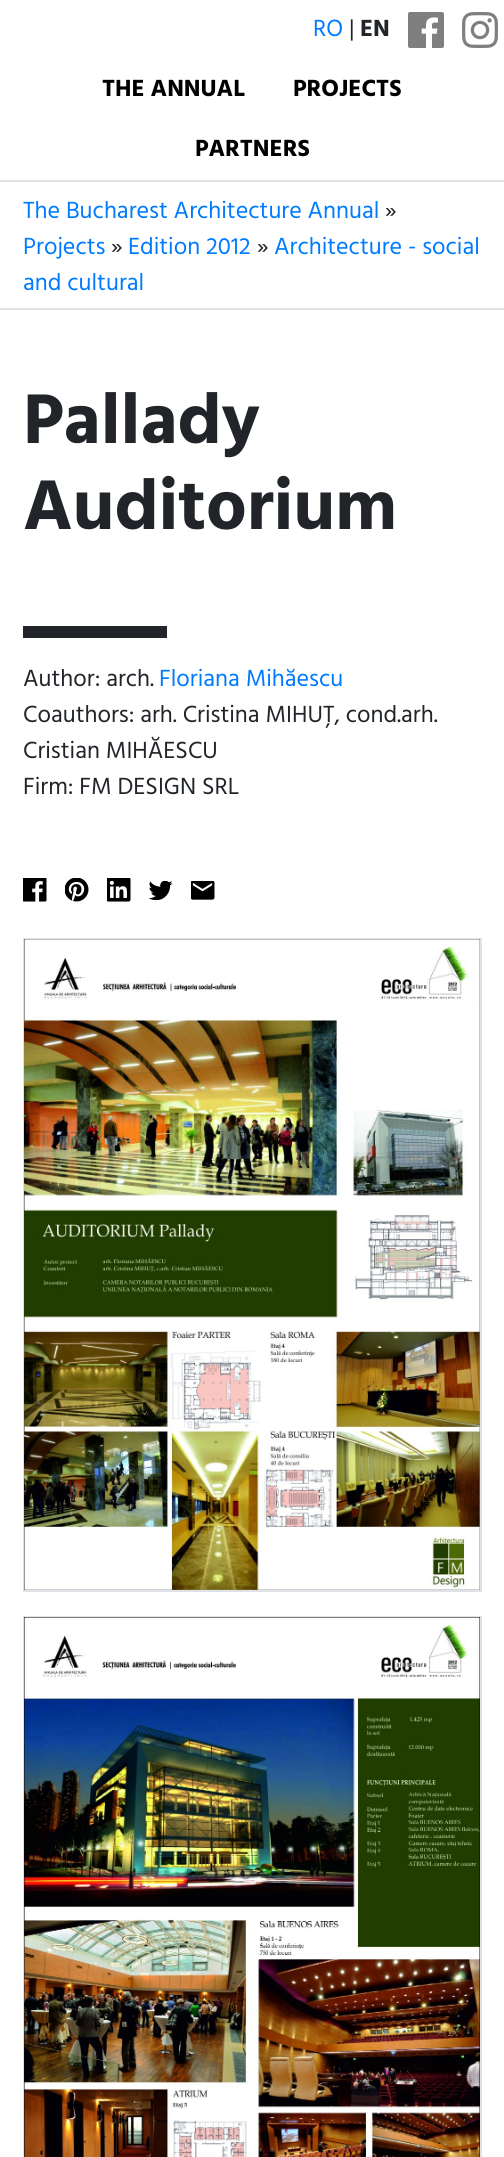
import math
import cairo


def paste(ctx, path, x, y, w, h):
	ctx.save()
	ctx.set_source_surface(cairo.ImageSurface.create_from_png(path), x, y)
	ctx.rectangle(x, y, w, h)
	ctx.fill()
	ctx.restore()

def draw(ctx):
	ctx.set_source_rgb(1, 1, 1)
	ctx.paint()
	ctx.select_font_face('Hind')
	ctx.set_font_size(24)
	ctx.set_source_rgb(0, 0.482, 1)
	ctx.move_to(313, 36)
	ctx.show_text('RO')
	ctx.set_source_rgb(0.129, 0.145, 0.161)
	ctx.move_to(349, 36)
	ctx.show_text('|')
	ctx.select_font_face('Hind', cairo.FONT_SLANT_NORMAL, cairo.FONT_WEIGHT_BOLD)
	ctx.move_to(360, 36)
	ctx.show_text('EN')
	paste(ctx, 'media/1.png', 408, 12, 36, 36)
	paste(ctx, 'media/2.png', 462, 12, 36, 36)
	ctx.set_source_rgb(0, 0, 0)
	for x, y, s in [
		(102, 96, 'THE ANNUAL'),
		(293, 96, 'PROJECTS'),
		(195, 156, 'PARTNERS'),
	]:
		ctx.move_to(x, y)
		ctx.show_text(s)
	ctx.set_source_rgb(0.871, 0.886, 0.902)
	ctx.rectangle(0, 180, 504, 2)
	ctx.fill()
	ctx.rectangle(0, 308, 504, 2)
	ctx.fill()
	ctx.select_font_face('Hind')
	ctx.set_source_rgb(0, 0.482, 1)
	ctx.move_to(23, 218)
	ctx.show_text('The Bucharest Architecture Annual')
	ctx.set_source_rgb(0.129, 0.145, 0.161)
	ctx.move_to(385, 218)
	ctx.show_text('»')
	ctx.set_source_rgb(0, 0.482, 1)
	ctx.move_to(23, 254)
	ctx.show_text('Projects')
	ctx.set_source_rgb(0.129, 0.145, 0.161)
	ctx.move_to(111, 254)
	ctx.show_text('»')
	ctx.set_source_rgb(0, 0.482, 1)
	ctx.move_to(128, 254)
	ctx.show_text('Edition 2012')
	ctx.set_source_rgb(0.129, 0.145, 0.161)
	ctx.move_to(257, 254)
	ctx.show_text('»')
	ctx.set_source_rgb(0, 0.482, 1)
	ctx.move_to(274, 254)
	ctx.show_text('Architecture - social')
	ctx.move_to(23, 290)
	ctx.show_text('and cultural')
	ctx.select_font_face('Hind', cairo.FONT_SLANT_NORMAL, cairo.FONT_WEIGHT_BOLD)
	ctx.set_font_size(72)
	ctx.set_source_rgb(0.129, 0.145, 0.161)
	ctx.move_to(23, 443)
	ctx.show_text('Pallady')
	ctx.move_to(23, 529)
	ctx.show_text('Auditorium')
	ctx.rectangle(23, 626, 144, 12)
	ctx.fill()
	ctx.select_font_face('Hind')
	ctx.set_font_size(24)
	ctx.move_to(23, 686)
	ctx.show_text('Author: arch.')
	ctx.set_source_rgb(0, 0.482, 1)
	ctx.move_to(159, 686)
	ctx.show_text('Floriana Mihăescu')
	ctx.set_source_rgb(0.129, 0.145, 0.161)
	for x, y, s in [
		(23, 722, 'Coauthors: arh. Cristina MIHUȚ, cond.arh.'),
		(23, 758, 'Cristian MIHĂESCU'),
		(23, 794, 'Firm: FM DESIGN SRL'),
	]:
		ctx.move_to(x, y)
		ctx.show_text(s)
	paste(ctx, 'media/3.png', 23, 878, 24, 24)
	paste(ctx, 'media/4.png', 65, 878, 24, 24)
	paste(ctx, 'media/5.png', 107, 878, 24, 24)
	paste(ctx, 'media/6.png', 149, 881, 24, 19)
	paste(ctx, 'media/7.png', 191, 881, 24, 19)
	ctx.rectangle(24, 939, 457, 652)
	ctx.set_source_rgb(0.871, 0.886, 0.902)
	ctx.stroke()
	paste(ctx, 'media/8.png', 24, 939, 456, 651)
	ctx.rectangle(24, 1617, 457, 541)
	ctx.stroke()
	paste(ctx, 'media/9.png', 24, 1617, 456, 540)


surface = cairo.ImageSurface(cairo.FORMAT_RGB24, 504, 2157)
ctx = cairo.Context(surface)
options = cairo.FontOptions()
options.set_hint_metrics(cairo.HINT_METRICS_OFF)
options.set_hint_style(cairo.HINT_STYLE_NONE)
ctx.set_font_options(options)
ctx.set_miter_limit(4)
draw(ctx)
surface.write_to_png('image.png')
